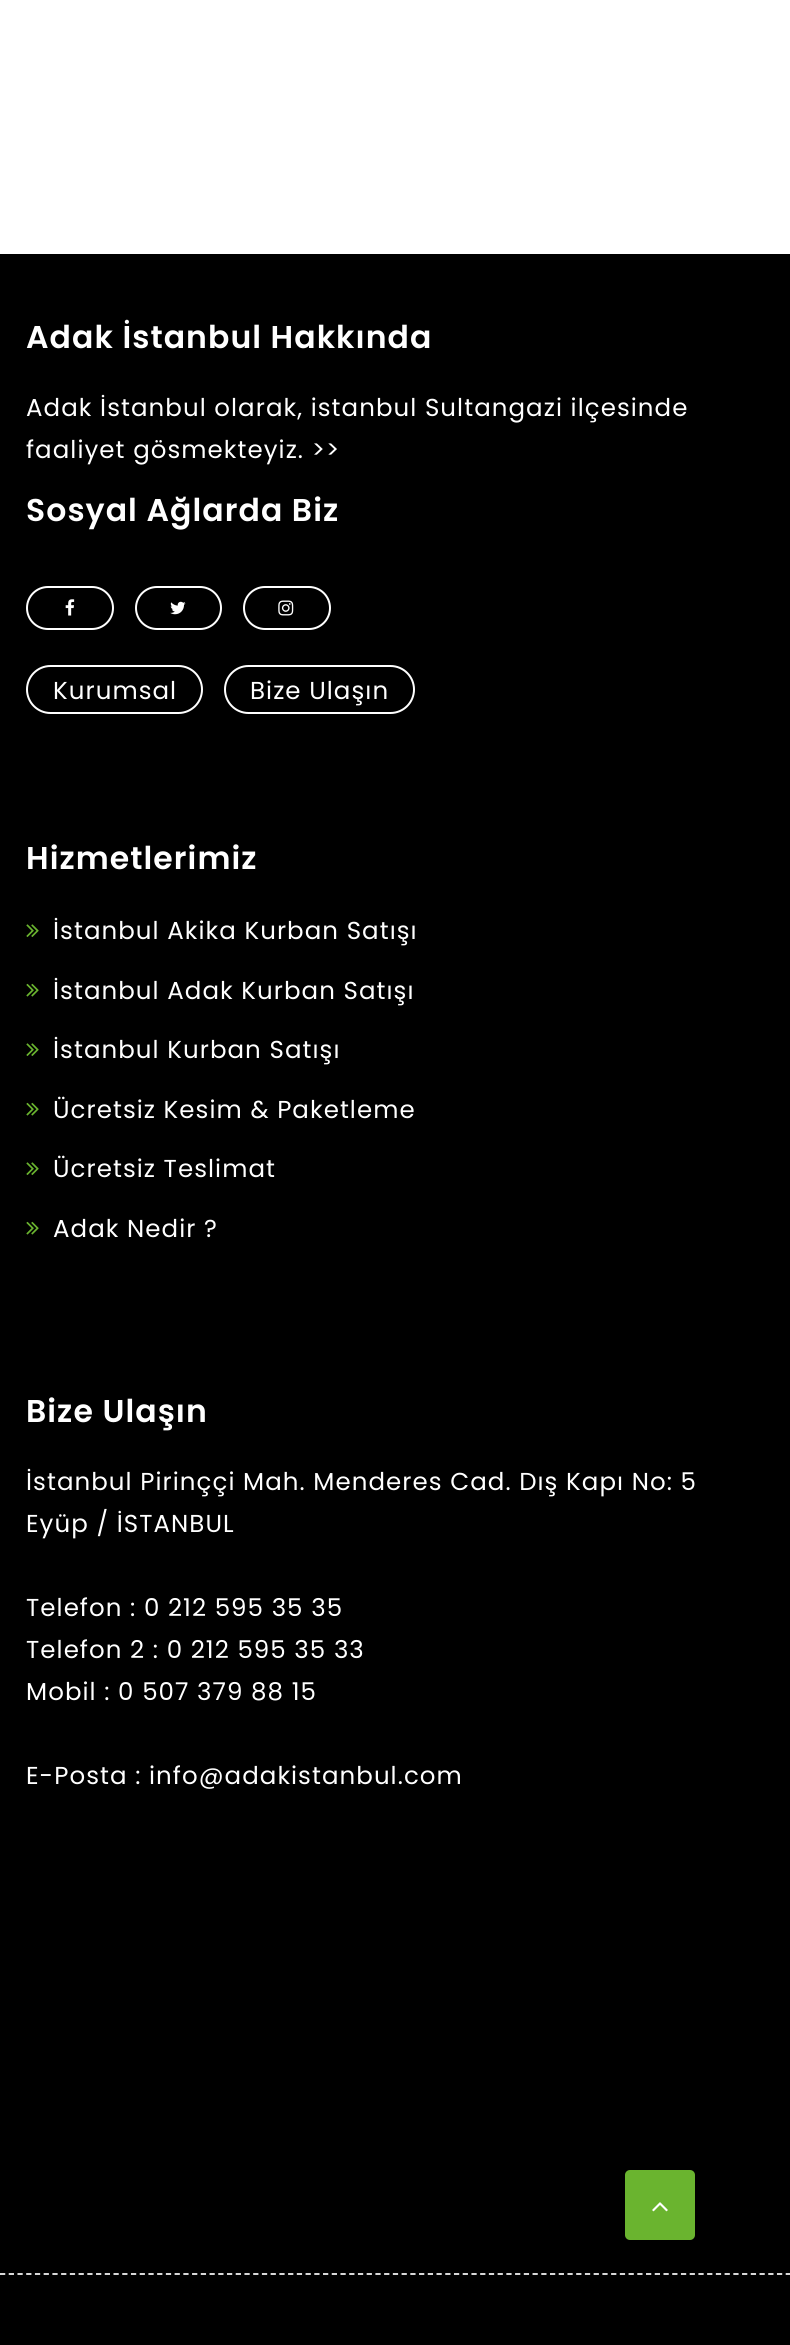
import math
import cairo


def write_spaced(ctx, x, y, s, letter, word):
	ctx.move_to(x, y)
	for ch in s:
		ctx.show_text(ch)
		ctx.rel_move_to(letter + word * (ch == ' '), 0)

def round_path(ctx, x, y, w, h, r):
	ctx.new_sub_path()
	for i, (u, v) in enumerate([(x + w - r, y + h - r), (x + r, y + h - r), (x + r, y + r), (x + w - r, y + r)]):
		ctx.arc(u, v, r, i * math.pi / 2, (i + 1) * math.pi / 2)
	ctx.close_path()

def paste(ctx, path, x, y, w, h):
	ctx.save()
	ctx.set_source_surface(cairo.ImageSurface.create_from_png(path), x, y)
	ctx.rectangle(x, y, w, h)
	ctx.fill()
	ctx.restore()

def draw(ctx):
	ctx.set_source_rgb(1, 1, 1)
	ctx.paint()
	ctx.set_source_rgb(0, 0, 0)
	ctx.rectangle(0, 254, 790, 2091)
	ctx.fill()
	ctx.select_font_face('Poppins SemiBold')
	ctx.set_font_size(31.5)
	ctx.set_source_rgb(1, 1, 1)
	write_spaced(ctx, 26, 348, 'Adak İstanbul Hakkında', 1.05, 0)
	ctx.select_font_face('Poppins')
	ctx.set_font_size(24.5)
	write_spaced(ctx, 26, 416, 'Adak İstanbul olarak, istanbul Sultangazi ilçesinde', 1.05, 0)
	write_spaced(ctx, 26, 458, 'faaliyet gösmekteyiz. >>', 1.05, 0)
	ctx.select_font_face('Poppins SemiBold')
	ctx.set_font_size(31.5)
	write_spaced(ctx, 26, 521, 'Sosyal Ağlarda Biz', 1.05, 0)
	round_path(ctx, 27, 587, 86, 42, 21)
	ctx.stroke()
	paste(ctx, 'media/1.png', 65, 599, 10, 17)
	round_path(ctx, 136, 587, 85, 42, 21)
	ctx.stroke()
	paste(ctx, 'media/2.png', 170, 601, 16, 14)
	round_path(ctx, 244, 587, 86, 42, 21)
	ctx.stroke()
	paste(ctx, 'media/3.png', 278, 600, 16, 16)
	round_path(ctx, 27, 666, 175, 47, 23.5)
	ctx.stroke()
	ctx.select_font_face('Poppins')
	ctx.set_font_size(24.5)
	write_spaced(ctx, 53, 699, 'Kurumsal', 1.05, 0)
	round_path(ctx, 225, 666, 189, 47, 23.5)
	ctx.stroke()
	write_spaced(ctx, 250, 699, 'Bize Ulaşın', 1.05, 0)
	ctx.select_font_face('Poppins SemiBold')
	ctx.set_font_size(31.5)
	write_spaced(ctx, 26, 869, 'Hizmetlerimiz', 1.05, 0)
	paste(ctx, 'media/4.png', 26, 924, 13, 13)
	ctx.select_font_face('Poppins')
	ctx.set_font_size(24.5)
	write_spaced(ctx, 53, 939, 'İstanbul Akika Kurban Satışı', 1.05, 0)
	paste(ctx, 'media/5.png', 26, 983, 13, 14)
	write_spaced(ctx, 53, 999, 'İstanbul Adak Kurban Satışı', 1.05, 0)
	paste(ctx, 'media/4.png', 26, 1043, 13, 13)
	write_spaced(ctx, 53, 1058, 'İstanbul Kurban Satışı', 1.05, 0)
	paste(ctx, 'media/5.png', 26, 1102, 13, 14)
	write_spaced(ctx, 53, 1118, 'Ücretsiz Kesim & Paketleme', 1.05, 0)
	paste(ctx, 'media/4.png', 26, 1162, 13, 13)
	write_spaced(ctx, 53, 1177, 'Ücretsiz Teslimat', 1.05, 0)
	paste(ctx, 'media/5.png', 26, 1221, 13, 14)
	write_spaced(ctx, 53, 1237, 'Adak Nedir ?', 1.05, 0)
	ctx.select_font_face('Poppins SemiBold')
	ctx.set_font_size(31.5)
	write_spaced(ctx, 26, 1422, 'Bize Ulaşın', 1.05, 0)
	ctx.select_font_face('Poppins')
	ctx.set_font_size(24.5)
	for x, y, s in [
		(26, 1490, 'İstanbul Pirinççi Mah. Menderes Cad. Dış Kapı No: 5'),
		(26, 1532, 'Eyüp / İSTANBUL'),
		(26, 1616, 'Telefon : 0 212 595 35 35'),
		(26, 1658, 'Telefon 2 : 0 212 595 35 33'),
		(26, 1700, 'Mobil : 0 507 379 88 15'),
		(26, 1784, 'E-Posta : info@adakistanbul.com'),
	]:
		write_spaced(ctx, x, y, s, 1.05, 0)
	ctx.set_source_rgb(0.416, 0.706, 0.184)
	round_path(ctx, 625, 2170, 70, 70, 5)
	ctx.fill()
	paste(ctx, 'media/6.png', 652, 2202, 16, 10)
	ctx.new_path()
	ctx.move_to(0, 2274)
	ctx.line_to(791, 2274)
	ctx.set_source_rgb(0.933, 0.933, 0.933)
	ctx.set_line_width(1.8)
	ctx.set_dash([5.25, 3.48])
	ctx.stroke()


surface = cairo.ImageSurface(cairo.FORMAT_RGB24, 790, 2345)
ctx = cairo.Context(surface)
options = cairo.FontOptions()
options.set_hint_metrics(cairo.HINT_METRICS_OFF)
options.set_hint_style(cairo.HINT_STYLE_NONE)
ctx.set_font_options(options)
ctx.set_miter_limit(4)
draw(ctx)
surface.write_to_png('image.png')
